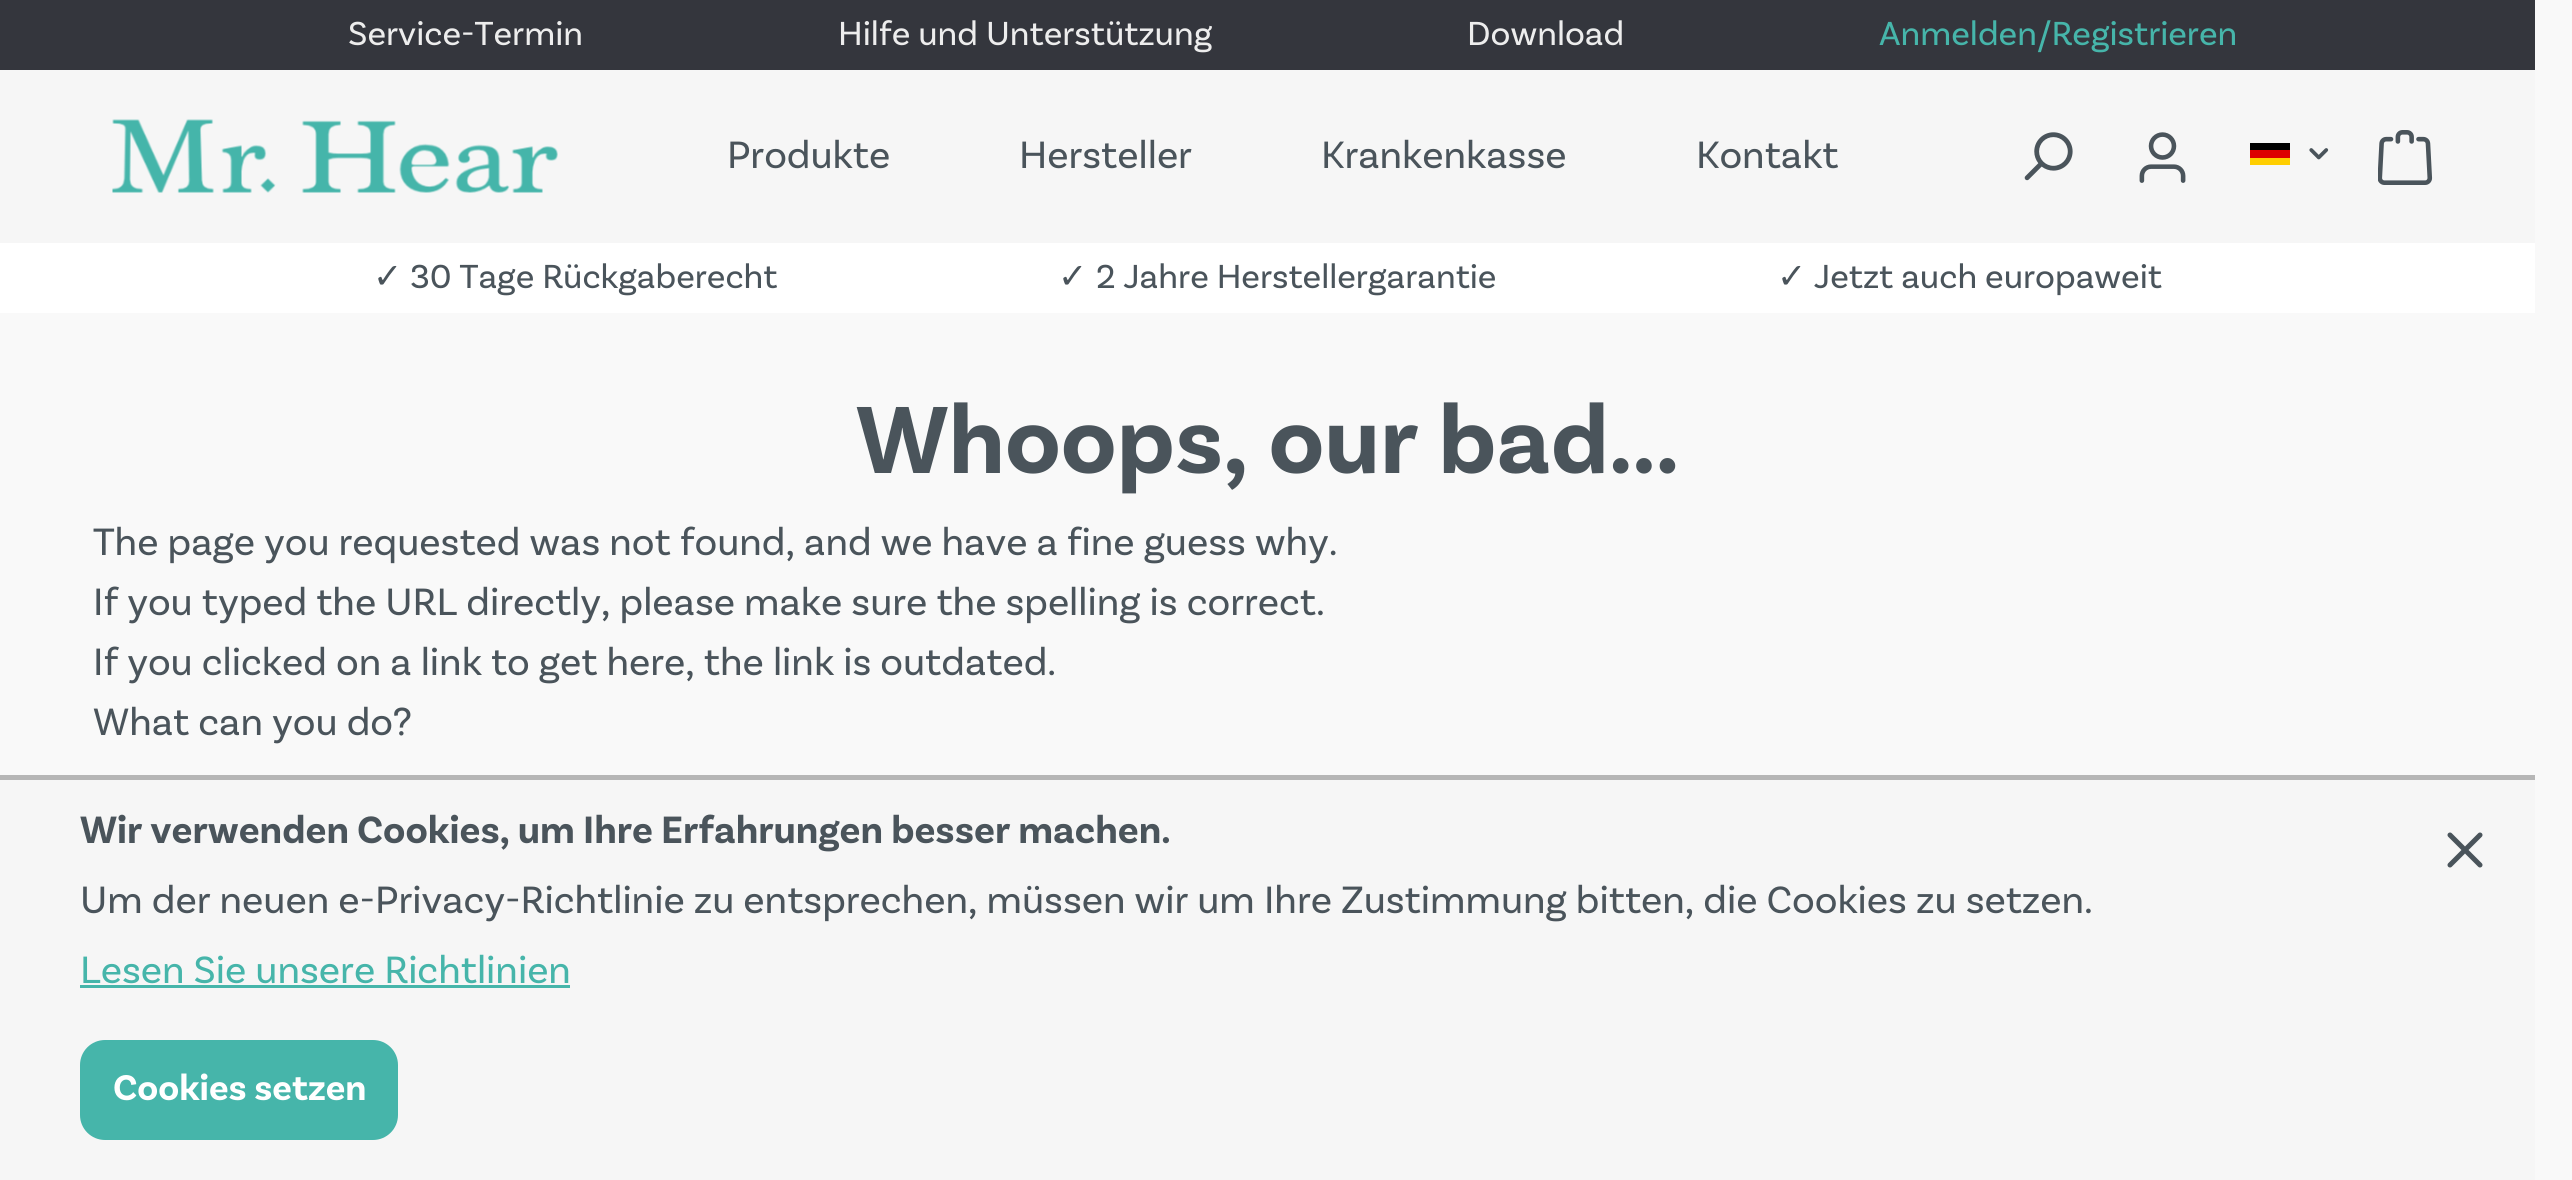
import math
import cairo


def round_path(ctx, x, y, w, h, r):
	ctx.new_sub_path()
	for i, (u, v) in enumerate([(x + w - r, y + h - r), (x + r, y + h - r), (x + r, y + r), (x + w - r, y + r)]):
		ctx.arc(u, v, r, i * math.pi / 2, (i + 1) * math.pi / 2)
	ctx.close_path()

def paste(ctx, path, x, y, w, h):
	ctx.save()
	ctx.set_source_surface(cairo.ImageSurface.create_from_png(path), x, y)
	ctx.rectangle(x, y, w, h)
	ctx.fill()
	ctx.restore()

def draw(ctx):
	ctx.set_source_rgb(0.973, 0.973, 0.973)
	ctx.paint()
	ctx.set_source_rgb(0.204, 0.212, 0.239)
	ctx.rectangle(0, 0, 2535, 70)
	ctx.fill()
	ctx.select_font_face('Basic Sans')
	ctx.set_font_size(35)
	ctx.set_source_rgb(0.929, 0.929, 0.929)
	for x, y, s in [
		(348, 45, 'Service-Termin'),
		(838, 45, 'Hilfe und Unterstützung'),
		(1467, 45, 'Download'),
	]:
		ctx.move_to(x, y)
		ctx.show_text(s)
	ctx.set_source_rgb(0.275, 0.71, 0.667)
	ctx.move_to(1879, 45)
	ctx.show_text('Anmelden/Registrieren')
	ctx.set_source_rgb(0.961, 0.961, 0.961)
	ctx.rectangle(0, 70, 2535, 173)
	ctx.fill()
	paste(ctx, 'media/1.png', 112, 119, 446, 74)
	ctx.set_font_size(40)
	ctx.set_source_rgb(0.29, 0.329, 0.357)
	for x, y, s in [
		(727, 168, 'Produkte'),
		(1019, 168, 'Hersteller'),
		(1321, 168, 'Krankenkasse'),
		(1696, 168, 'Kontakt'),
	]:
		ctx.move_to(x, y)
		ctx.show_text(s)
	paste(ctx, 'media/2.png', 2024, 132, 49, 49)
	paste(ctx, 'media/3.png', 2139, 132, 47, 51)
	ctx.set_source_rgb(0, 0, 0)
	ctx.rectangle(2250, 143, 40, 7)
	ctx.fill()
	ctx.set_source_rgb(0.867, 0, 0)
	ctx.rectangle(2250, 150, 40, 8)
	ctx.fill()
	ctx.set_source_rgb(1, 0.808, 0)
	ctx.rectangle(2250, 158, 40, 7)
	ctx.fill()
	paste(ctx, 'media/4.png', 2309, 148, 20, 12)
	paste(ctx, 'media/5.png', 2378, 130, 55, 55)
	ctx.set_source_rgb(1, 1, 1)
	ctx.rectangle(0, 243, 2535, 70)
	ctx.fill()
	ctx.select_font_face('DejaVu Sans')
	ctx.set_font_size(35)
	ctx.set_source_rgb(0.29, 0.329, 0.357)
	ctx.move_to(373, 288)
	ctx.show_text('✓')
	ctx.select_font_face('Basic Sans')
	ctx.move_to(410, 288)
	ctx.show_text('30 Tage Rückgaberecht')
	ctx.select_font_face('DejaVu Sans')
	ctx.move_to(1058, 288)
	ctx.show_text('✓')
	ctx.select_font_face('Basic Sans')
	ctx.move_to(1096, 288)
	ctx.show_text('2 Jahre Herstellergarantie')
	ctx.select_font_face('DejaVu Sans')
	ctx.move_to(1777, 288)
	ctx.show_text('✓')
	ctx.select_font_face('Basic Sans')
	ctx.move_to(1814, 288)
	ctx.show_text('Jetzt auch europaweit')
	ctx.select_font_face('Basic Sans', cairo.FONT_SLANT_NORMAL, cairo.FONT_WEIGHT_BOLD)
	ctx.set_font_size(100)
	ctx.move_to(856, 473)
	ctx.show_text('Whoops, our bad...')
	ctx.select_font_face('Basic Sans')
	ctx.set_font_size(40)
	for x, y, s in [
		(93, 555, 'The page you requested was not found, and we have a fine guess why.'),
		(93, 615, 'If you typed the URL directly, please make sure the spelling is correct.'),
		(93, 675, 'If you clicked on a link to get here, the link is outdated.'),
		(93, 735, 'What can you do?'),
	]:
		ctx.move_to(x, y)
		ctx.show_text(s)
	ctx.set_source_rgb(0.961, 0.961, 0.961)
	ctx.rectangle(0, 780, 2535, 400)
	ctx.fill()
	ctx.set_source_rgb(0.714, 0.714, 0.714)
	ctx.rectangle(0, 775, 2535, 5)
	ctx.fill()
	ctx.select_font_face('Basic Sans', cairo.FONT_SLANT_NORMAL, cairo.FONT_WEIGHT_BOLD)
	ctx.set_source_rgb(0.29, 0.329, 0.357)
	ctx.move_to(80, 843)
	ctx.show_text('Wir verwenden Cookies, um Ihre Erfahrungen besser machen.')
	ctx.select_font_face('Basic Sans')
	ctx.move_to(80, 913)
	ctx.show_text('Um der neuen e-Privacy-Richtlinie zu entsprechen, müssen wir um Ihre Zustimmung bitten, die Cookies zu setzen.')
	ctx.set_source_rgb(0.275, 0.71, 0.667)
	ctx.move_to(80, 983)
	ctx.show_text('Lesen Sie unsere Richtlinien')
	ctx.rectangle(80, 985, 490, 3)
	ctx.fill()
	round_path(ctx, 81.5, 1041.5, 315, 97, 23.5)
	ctx.fill_preserve()
	ctx.set_line_width(3)
	ctx.stroke()
	ctx.select_font_face('Basic Sans', cairo.FONT_SLANT_NORMAL, cairo.FONT_WEIGHT_BOLD)
	ctx.set_font_size(37.5)
	ctx.set_source_rgb(1, 1, 1)
	ctx.move_to(113, 1100)
	ctx.show_text('Cookies setzen')
	ctx.new_path()
	ctx.move_to(2450, 865)
	ctx.line_to(2480, 835)
	ctx.move_to(2450, 835)
	ctx.line_to(2480, 865)
	ctx.set_source_rgb(0.29, 0.329, 0.357)
	ctx.set_line_width(5)
	ctx.set_line_cap(cairo.LINE_CAP_ROUND)
	ctx.set_line_join(cairo.LINE_JOIN_ROUND)
	ctx.stroke()


surface = cairo.ImageSurface(cairo.FORMAT_RGB24, 2572, 1180)
ctx = cairo.Context(surface)
options = cairo.FontOptions()
options.set_hint_metrics(cairo.HINT_METRICS_OFF)
options.set_hint_style(cairo.HINT_STYLE_NONE)
ctx.set_font_options(options)
ctx.set_miter_limit(4)
draw(ctx)
surface.write_to_png('image.png')
